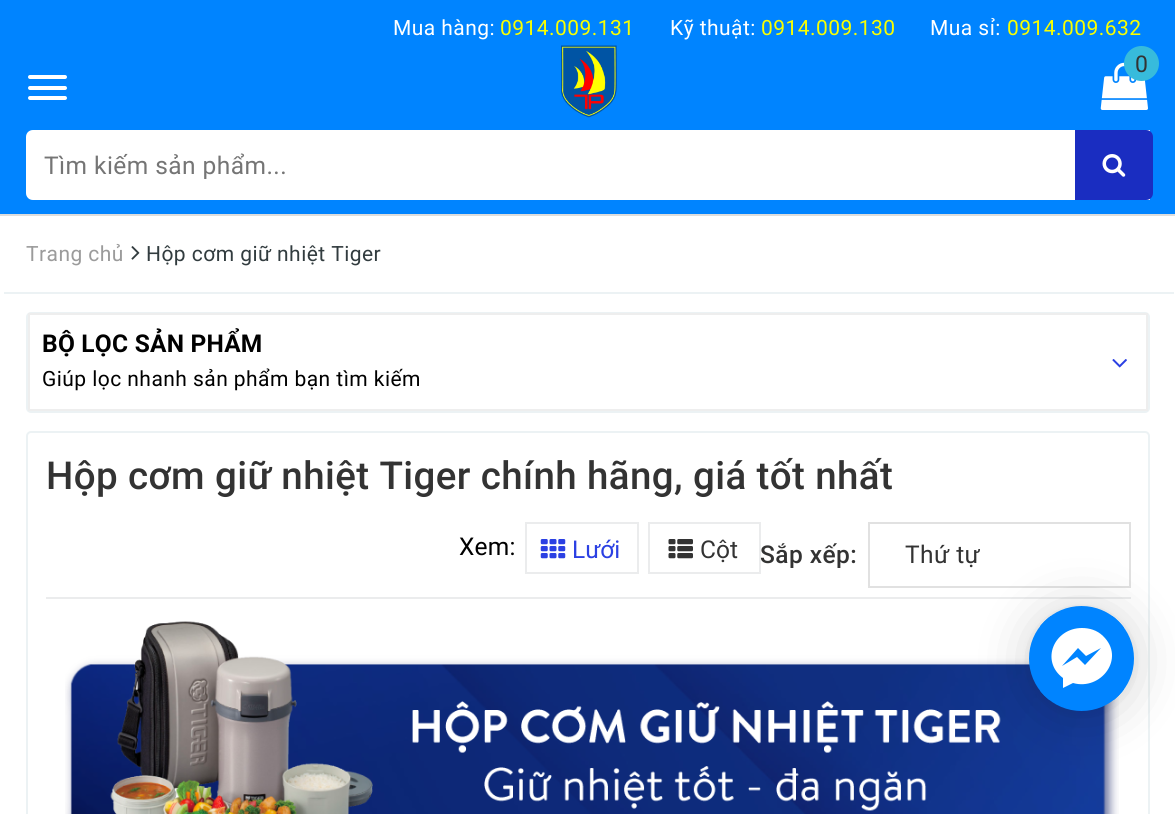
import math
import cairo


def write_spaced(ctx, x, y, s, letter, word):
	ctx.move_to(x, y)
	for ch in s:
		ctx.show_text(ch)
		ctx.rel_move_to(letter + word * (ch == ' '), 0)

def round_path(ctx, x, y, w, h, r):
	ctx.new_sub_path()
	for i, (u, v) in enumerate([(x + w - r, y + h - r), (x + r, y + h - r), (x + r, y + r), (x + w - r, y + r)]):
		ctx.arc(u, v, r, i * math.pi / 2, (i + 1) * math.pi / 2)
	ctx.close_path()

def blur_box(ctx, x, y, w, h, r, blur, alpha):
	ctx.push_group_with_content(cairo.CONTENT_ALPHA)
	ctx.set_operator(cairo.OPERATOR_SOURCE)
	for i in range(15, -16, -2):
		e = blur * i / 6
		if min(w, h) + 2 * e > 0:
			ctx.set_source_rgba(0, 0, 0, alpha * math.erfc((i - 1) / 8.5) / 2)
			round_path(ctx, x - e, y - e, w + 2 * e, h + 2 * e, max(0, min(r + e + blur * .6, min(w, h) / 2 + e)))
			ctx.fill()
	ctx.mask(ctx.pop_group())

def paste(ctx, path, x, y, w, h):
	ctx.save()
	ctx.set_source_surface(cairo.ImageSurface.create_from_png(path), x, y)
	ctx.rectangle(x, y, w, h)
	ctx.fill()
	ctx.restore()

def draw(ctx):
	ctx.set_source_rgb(1, 1, 1)
	ctx.paint()
	ctx.set_source_rgb(0, 0.518, 1)
	ctx.rectangle(0, 0, 1175, 214)
	ctx.fill()
	ctx.select_font_face('Roboto')
	ctx.set_font_size(21)
	ctx.set_source_rgb(1, 1, 1)
	write_spaced(ctx, 393, 35, 'Mua hàng:', 0.45, 0)
	ctx.set_source_rgb(0.976, 1, 0)
	write_spaced(ctx, 500, 35, '0914.009.131', 0.45, 0)
	ctx.set_source_rgb(1, 1, 1)
	write_spaced(ctx, 670, 35, 'Kỹ thuật:', 0.45, 0)
	ctx.set_source_rgb(0.976, 1, 0)
	write_spaced(ctx, 761, 35, '0914.009.130', 0.45, 0)
	ctx.set_source_rgb(1, 1, 1)
	write_spaced(ctx, 930, 35, 'Mua sỉ:', 0.45, 0)
	ctx.set_source_rgb(0.976, 1, 0)
	write_spaced(ctx, 1007, 35, '0914.009.632', 0.45, 0)
	paste(ctx, 'media/1.png', 561, 45, 56, 73)
	paste(ctx, 'media/2.png', 1100, 62, 48, 48)
	ctx.set_source_rgb(0.216, 0.733, 0.863)
	ctx.arc(1141.5, 63.5, 17.5, 0, 2 * math.pi)
	ctx.fill()
	ctx.set_font_size(23)
	ctx.set_source_rgb(0.2, 0.2, 0.2)
	write_spaced(ctx, 1135, 72, '0', 0.45, 0)
	ctx.set_source_rgb(1, 1, 1)
	round_path(ctx, 28, 75, 39, 4, 2)
	ctx.fill()
	round_path(ctx, 28, 86, 39, 4, 2)
	ctx.fill()
	round_path(ctx, 28, 96, 39, 4, 2)
	ctx.fill()
	ctx.new_path()
	ctx.move_to(33, 130)
	ctx.line_to(1150, 130)
	ctx.line_to(1150, 200)
	ctx.line_to(33, 200)
	ctx.curve_to(29, 200, 26, 197, 26, 193)
	ctx.line_to(26, 137)
	ctx.curve_to(26, 133, 29, 130, 33, 130)
	ctx.close_path()
	ctx.fill()
	ctx.set_font_size(24.5)
	ctx.set_source_rgb(0.459, 0.459, 0.459)
	write_spaced(ctx, 44, 174, 'Tìm kiếm sản phẩm...', 0.45, 0)
	ctx.set_source_rgb(0.102, 0.176, 0.757)
	ctx.new_path()
	ctx.move_to(1075, 130)
	ctx.line_to(1146, 130)
	ctx.curve_to(1150, 130, 1153, 133, 1153, 137)
	ctx.line_to(1153, 193)
	ctx.curve_to(1153, 197, 1150, 200, 1146, 200)
	ctx.line_to(1075, 200)
	ctx.close_path()
	ctx.fill()
	paste(ctx, 'media/3.png', 1102, 154, 24, 23)
	ctx.set_source_rgb(0.867, 0.867, 0.867)
	ctx.rectangle(0, 214, 1175, 2)
	ctx.fill()
	ctx.set_source_rgb(0.925, 0.949, 0.957)
	ctx.rectangle(4, 292, 1170, 2)
	ctx.fill()
	ctx.set_font_size(21)
	ctx.set_source_rgb(0.608, 0.608, 0.608)
	write_spaced(ctx, 26, 261, 'Trang chủ', 0.45, 0)
	paste(ctx, 'media/4.png', 131, 246, 9, 14)
	ctx.set_source_rgb(0.196, 0.235, 0.247)
	write_spaced(ctx, 146, 261, 'Hộp cơm giữ nhiệt Tiger', 0.45, 0)
	round_path(ctx, 27, 313, 1122, 99, 4)
	ctx.set_source_rgb(0.925, 0.949, 0.957)
	ctx.stroke()
	ctx.rectangle(29, 314, 1118, 96)
	ctx.set_source_rgb(0.933, 0.933, 0.933)
	ctx.stroke()
	ctx.select_font_face('Roboto', cairo.FONT_SLANT_NORMAL, cairo.FONT_WEIGHT_BOLD)
	ctx.set_font_size(24.5)
	ctx.set_source_rgb(0, 0, 0)
	write_spaced(ctx, 42, 352, 'BỘ LỌC SẢN PHẨM', 0.25, 0)
	paste(ctx, 'media/5.png', 1112, 359, 15, 9)
	ctx.select_font_face('Roboto')
	ctx.set_font_size(21)
	write_spaced(ctx, 42, 386, 'Giúp lọc nhanh sản phẩm bạn tìm kiếm', 0.45, 0)
	round_path(ctx, 27, 432, 1122, 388, 4)
	ctx.set_source_rgb(0.925, 0.949, 0.957)
	ctx.stroke()
	ctx.select_font_face('Roboto Medium')
	ctx.set_font_size(38.5)
	ctx.set_source_rgb(0.2, 0.2, 0.2)
	write_spaced(ctx, 46, 489, 'Hộp cơm giữ nhiệt Tiger chính hãng, giá tốt nhất', 0.4, 0)
	ctx.set_source_rgb(0.918, 0.925, 0.929)
	ctx.rectangle(46, 597, 1085, 2)
	ctx.fill()
	ctx.select_font_face('Roboto')
	ctx.set_font_size(24.5)
	ctx.set_source_rgb(0, 0, 0)
	write_spaced(ctx, 459, 555, 'Xem:', 0.25, 0)
	ctx.rectangle(526, 523, 112, 50)
	ctx.set_source_rgb(0.918, 0.925, 0.929)
	ctx.stroke()
	paste(ctx, 'media/6.png', 540, 539, 26, 20)
	ctx.set_source_rgb(0.169, 0.251, 0.89)
	ctx.move_to(572, 558)
	ctx.show_text('Lưới')
	ctx.rectangle(649, 523, 111, 50)
	ctx.set_source_rgb(0.918, 0.925, 0.929)
	ctx.stroke()
	paste(ctx, 'media/7.png', 668, 539, 25, 20)
	ctx.set_source_rgb(0.2, 0.2, 0.2)
	ctx.move_to(700, 558)
	ctx.show_text('Cột')
	ctx.select_font_face('Roboto Medium')
	write_spaced(ctx, 760, 563, 'Sắp xếp:', 0.45, 0)
	ctx.rectangle(869, 523, 261, 64)
	ctx.set_source_rgb(0.882, 0.882, 0.882)
	ctx.stroke()
	ctx.select_font_face('Roboto')
	ctx.set_source_rgb(0.2, 0.2, 0.2)
	write_spaced(ctx, 905, 563, 'Thứ tự', 0.45, 0)
	paste(ctx, 'media/8.png', 65, 621, 1054, 193)
	ctx.set_source_rgb(0, 0, 0)
	blur_box(ctx, 1029, 609, 105, 105, 52.5, 28, 0.16)
	blur_box(ctx, 1029, 607, 105, 105, 52.5, 5, 0.06)
	ctx.set_source_rgb(0, 0.518, 1)
	ctx.arc(1081.5, 658.5, 52.5, 0, 2 * math.pi)
	ctx.fill()
	ctx.save()
	round_path(ctx, 1029, 606, 105, 105, 52.5)
	ctx.clip()
	ctx.rectangle(1040, 616, 84, 84)
	ctx.fill()
	ctx.restore()
	ctx.set_source_rgb(1, 1, 1)
	ctx.new_path()
	ctx.move_to(1082, 628)
	ctx.curve_to(1054, 628, 1040, 661, 1063, 678)
	ctx.line_to(1063, 688)
	ctx.line_to(1073, 683)
	ctx.curve_to(1101, 691, 1126, 658, 1103, 636)
	ctx.curve_to(1097, 630, 1089, 628, 1082, 628)
	ctx.close_path()
	ctx.move_to(1085, 665)
	ctx.line_to(1077, 657)
	ctx.line_to(1062, 666)
	ctx.line_to(1078, 648)
	ctx.line_to(1086, 656)
	ctx.line_to(1101, 648)
	ctx.close_path()
	ctx.fill()


surface = cairo.ImageSurface(cairo.FORMAT_RGB24, 1175, 814)
ctx = cairo.Context(surface)
options = cairo.FontOptions()
options.set_hint_metrics(cairo.HINT_METRICS_OFF)
options.set_hint_style(cairo.HINT_STYLE_NONE)
ctx.set_font_options(options)
ctx.set_miter_limit(4)
draw(ctx)
surface.write_to_png('image.png')
